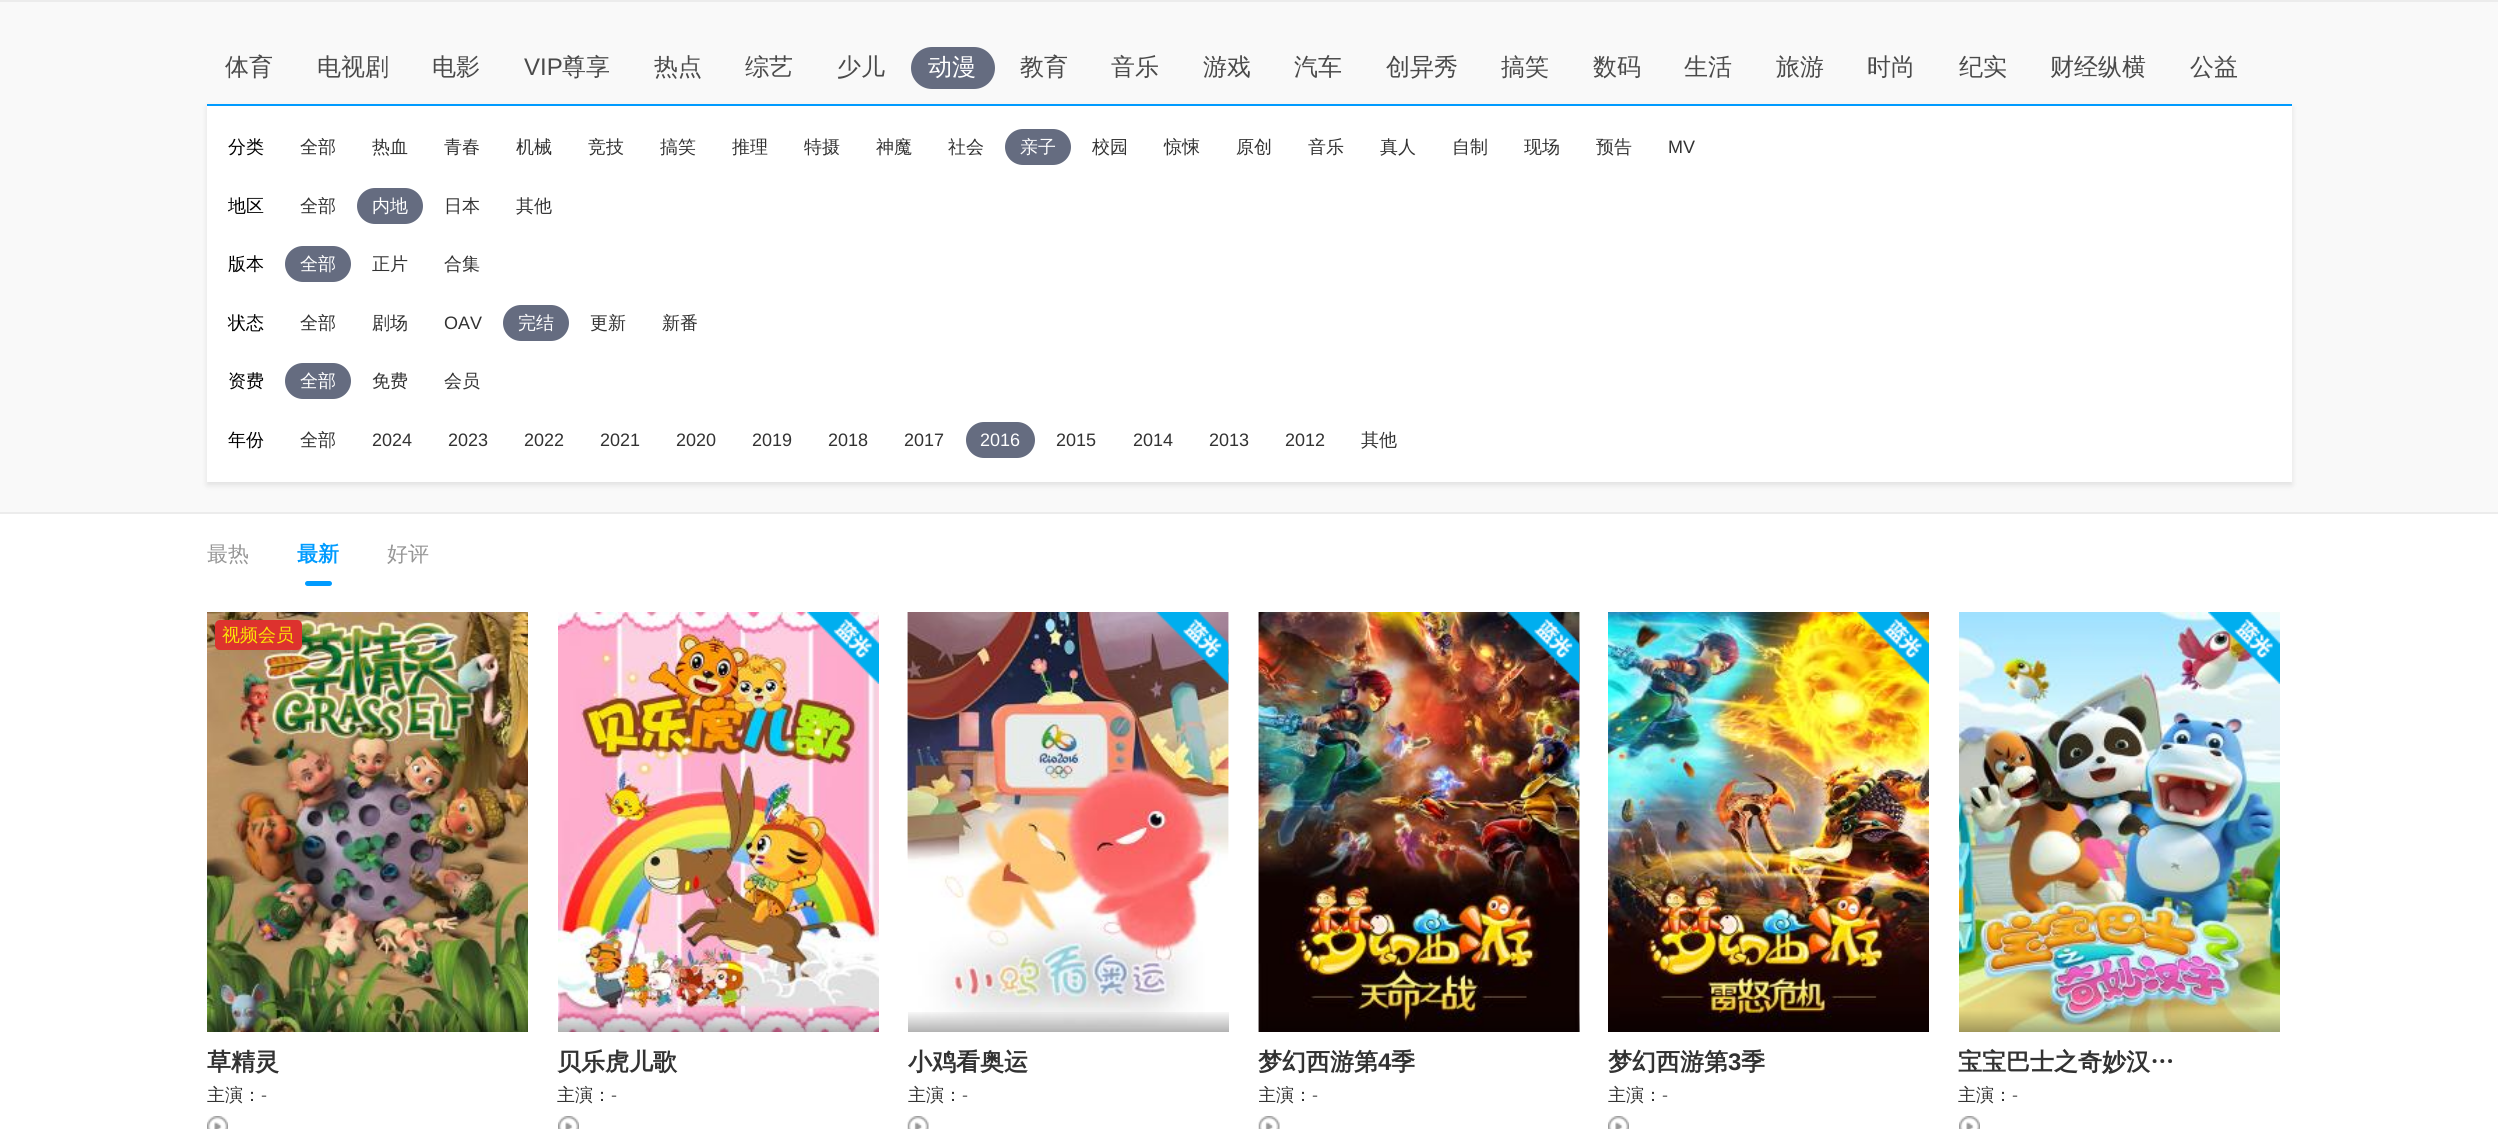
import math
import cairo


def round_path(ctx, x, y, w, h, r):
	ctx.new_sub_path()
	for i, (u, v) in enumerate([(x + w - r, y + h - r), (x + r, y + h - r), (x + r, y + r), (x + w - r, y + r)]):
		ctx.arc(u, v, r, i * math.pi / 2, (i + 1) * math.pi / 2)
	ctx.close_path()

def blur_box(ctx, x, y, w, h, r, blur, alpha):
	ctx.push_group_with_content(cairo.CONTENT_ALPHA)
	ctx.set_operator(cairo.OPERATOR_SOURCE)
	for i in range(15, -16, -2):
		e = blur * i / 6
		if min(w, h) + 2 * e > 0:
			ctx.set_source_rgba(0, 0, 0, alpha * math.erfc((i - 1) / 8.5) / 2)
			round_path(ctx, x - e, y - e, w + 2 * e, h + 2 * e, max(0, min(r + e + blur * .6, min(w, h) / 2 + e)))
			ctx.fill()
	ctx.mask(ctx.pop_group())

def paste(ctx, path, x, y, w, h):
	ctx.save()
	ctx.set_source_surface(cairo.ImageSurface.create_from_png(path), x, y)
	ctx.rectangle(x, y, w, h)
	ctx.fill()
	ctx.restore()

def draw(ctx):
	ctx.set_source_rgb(1, 1, 1)
	ctx.paint()
	ctx.set_source_rgb(0.973, 0.973, 0.973)
	ctx.rectangle(0, 2, 2498, 510)
	ctx.fill()
	ctx.set_source_rgb(0.922, 0.922, 0.922)
	ctx.rectangle(0, 0, 2498, 2)
	ctx.rectangle(0, 512, 2498, 2)
	ctx.fill()
	ctx.select_font_face('WenQuanYi Zen Hei Medium')
	ctx.set_font_size(24)
	ctx.set_source_rgb(0.29, 0.29, 0.29)
	for x, y, s in [
		(225, 75, '体育'),
		(317, 75, '电视剧'),
		(432, 75, '电影'),
	]:
		ctx.move_to(x, y)
		ctx.show_text(s)
	ctx.select_font_face('Liberation Sans')
	ctx.move_to(524, 75)
	ctx.show_text('VIP')
	ctx.select_font_face('WenQuanYi Zen Hei Medium')
	for x, y, s in [
		(562, 75, '尊享'),
		(654, 75, '热点'),
		(745, 75, '综艺'),
		(837, 75, '少儿'),
	]:
		ctx.move_to(x, y)
		ctx.show_text(s)
	ctx.set_source_rgb(0.396, 0.424, 0.502)
	round_path(ctx, 911, 47, 84, 42, 21)
	ctx.fill()
	ctx.set_source_rgb(1, 1, 1)
	ctx.move_to(928, 75)
	ctx.show_text('动漫')
	ctx.set_source_rgb(0.29, 0.29, 0.29)
	for x, y, s in [
		(1020, 75, '教育'),
		(1111, 75, '音乐'),
		(1203, 75, '游戏'),
		(1294, 75, '汽车'),
		(1386, 75, '创异秀'),
		(1501, 75, '搞笑'),
		(1593, 75, '数码'),
		(1684, 75, '生活'),
		(1776, 75, '旅游'),
		(1867, 75, '时尚'),
		(1959, 75, '纪实'),
		(2050, 75, '财经纵横'),
		(2190, 75, '公益'),
	]:
		ctx.move_to(x, y)
		ctx.show_text(s)
	ctx.set_source_rgb(0, 0, 0)
	blur_box(ctx, 207, 107, 2085, 378, 0, 3, 0.1)
	ctx.set_source_rgb(1, 1, 1)
	ctx.rectangle(207, 106, 2085, 376)
	ctx.fill()
	ctx.set_source_rgb(0, 0.608, 1)
	ctx.rectangle(207, 104, 2085, 2)
	ctx.fill()
	ctx.set_font_size(18)
	ctx.set_source_rgb(0, 0, 0)
	ctx.move_to(228, 153)
	ctx.show_text('分类')
	ctx.set_source_rgb(0.196, 0.196, 0.196)
	for x, y, s in [
		(300, 153, '全部'),
		(372, 153, '热血'),
		(444, 153, '青春'),
		(516, 153, '机械'),
		(588, 153, '竞技'),
		(660, 153, '搞笑'),
		(732, 153, '推理'),
		(804, 153, '特摄'),
		(876, 153, '神魔'),
		(948, 153, '社会'),
	]:
		ctx.move_to(x, y)
		ctx.show_text(s)
	ctx.set_source_rgb(0.396, 0.424, 0.502)
	round_path(ctx, 1005, 129, 66, 36, 18)
	ctx.fill()
	ctx.set_source_rgb(1, 1, 1)
	ctx.move_to(1020, 153)
	ctx.show_text('亲子')
	ctx.set_source_rgb(0.196, 0.196, 0.196)
	for x, y, s in [
		(1092, 153, '校园'),
		(1164, 153, '惊悚'),
		(1236, 153, '原创'),
		(1308, 153, '音乐'),
		(1380, 153, '真人'),
		(1452, 153, '自制'),
		(1524, 153, '现场'),
		(1596, 153, '预告'),
	]:
		ctx.move_to(x, y)
		ctx.show_text(s)
	ctx.select_font_face('Liberation Sans')
	ctx.move_to(1668, 153)
	ctx.show_text('MV')
	ctx.select_font_face('WenQuanYi Zen Hei Medium')
	ctx.set_source_rgb(0, 0, 0)
	ctx.move_to(228, 212)
	ctx.show_text('地区')
	ctx.set_source_rgb(0.196, 0.196, 0.196)
	ctx.move_to(300, 212)
	ctx.show_text('全部')
	ctx.set_source_rgb(0.396, 0.424, 0.502)
	round_path(ctx, 357, 188, 66, 36, 18)
	ctx.fill()
	ctx.set_source_rgb(1, 1, 1)
	ctx.move_to(372, 212)
	ctx.show_text('内地')
	ctx.set_source_rgb(0.196, 0.196, 0.196)
	ctx.move_to(444, 212)
	ctx.show_text('日本')
	ctx.move_to(516, 212)
	ctx.show_text('其他')
	ctx.set_source_rgb(0, 0, 0)
	ctx.move_to(228, 270)
	ctx.show_text('版本')
	ctx.set_source_rgb(0.396, 0.424, 0.502)
	round_path(ctx, 285, 246, 66, 36, 18)
	ctx.fill()
	ctx.set_source_rgb(1, 1, 1)
	ctx.move_to(300, 270)
	ctx.show_text('全部')
	ctx.set_source_rgb(0.196, 0.196, 0.196)
	ctx.move_to(372, 270)
	ctx.show_text('正片')
	ctx.move_to(444, 270)
	ctx.show_text('合集')
	ctx.set_source_rgb(0, 0, 0)
	ctx.move_to(228, 329)
	ctx.show_text('状态')
	ctx.set_source_rgb(0.196, 0.196, 0.196)
	ctx.move_to(300, 329)
	ctx.show_text('全部')
	ctx.move_to(372, 329)
	ctx.show_text('剧场')
	ctx.select_font_face('Liberation Sans')
	ctx.move_to(444, 329)
	ctx.show_text('OAV')
	ctx.set_source_rgb(0.396, 0.424, 0.502)
	round_path(ctx, 503, 305, 66, 36, 18)
	ctx.fill()
	ctx.select_font_face('WenQuanYi Zen Hei Medium')
	ctx.set_source_rgb(1, 1, 1)
	ctx.move_to(518, 329)
	ctx.show_text('完结')
	ctx.set_source_rgb(0.196, 0.196, 0.196)
	ctx.move_to(590, 329)
	ctx.show_text('更新')
	ctx.move_to(662, 329)
	ctx.show_text('新番')
	ctx.set_source_rgb(0, 0, 0)
	ctx.move_to(228, 387)
	ctx.show_text('资费')
	ctx.set_source_rgb(0.396, 0.424, 0.502)
	round_path(ctx, 285, 363, 66, 36, 18)
	ctx.fill()
	ctx.set_source_rgb(1, 1, 1)
	ctx.move_to(300, 387)
	ctx.show_text('全部')
	ctx.set_source_rgb(0.196, 0.196, 0.196)
	ctx.move_to(372, 387)
	ctx.show_text('免费')
	ctx.move_to(444, 387)
	ctx.show_text('会员')
	ctx.set_source_rgb(0, 0, 0)
	ctx.move_to(228, 446)
	ctx.show_text('年份')
	ctx.set_source_rgb(0.196, 0.196, 0.196)
	ctx.move_to(300, 446)
	ctx.show_text('全部')
	ctx.select_font_face('Liberation Sans')
	for x, y, s in [
		(372, 446, '2024'),
		(448, 446, '2023'),
		(524, 446, '2022'),
		(600, 446, '2021'),
		(676, 446, '2020'),
		(752, 446, '2019'),
		(828, 446, '2018'),
		(904, 446, '2017'),
	]:
		ctx.move_to(x, y)
		ctx.show_text(s)
	ctx.set_source_rgb(0.396, 0.424, 0.502)
	round_path(ctx, 966, 422, 69, 36, 18)
	ctx.fill()
	ctx.set_source_rgb(1, 1, 1)
	ctx.move_to(980, 446)
	ctx.show_text('2016')
	ctx.set_source_rgb(0.196, 0.196, 0.196)
	for x, y, s in [
		(1056, 446, '2015'),
		(1133, 446, '2014'),
		(1209, 446, '2013'),
		(1285, 446, '2012'),
	]:
		ctx.move_to(x, y)
		ctx.show_text(s)
	ctx.select_font_face('WenQuanYi Zen Hei Medium')
	ctx.move_to(1361, 446)
	ctx.show_text('其他')
	ctx.set_font_size(21)
	ctx.set_source_rgb(0.588, 0.588, 0.588)
	ctx.move_to(207, 561)
	ctx.show_text('最热')
	ctx.select_font_face('WenQuanYi Zen Hei', cairo.FONT_SLANT_NORMAL, cairo.FONT_WEIGHT_BOLD)
	ctx.set_source_rgb(0, 0.608, 1)
	ctx.move_to(297, 561)
	ctx.show_text('最新')
	round_path(ctx, 305, 581, 27, 5, 2.5)
	ctx.fill()
	ctx.select_font_face('WenQuanYi Zen Hei Medium')
	ctx.set_source_rgb(0.588, 0.588, 0.588)
	ctx.move_to(387, 561)
	ctx.show_text('好评')
	paste(ctx, 'media/1.png', 207, 612, 321, 420)
	ctx.set_source_rgb(0.867, 0.196, 0.18)
	round_path(ctx, 215, 620, 87, 30, 5)
	ctx.fill()
	ctx.set_font_size(18)
	ctx.set_source_rgb(0.98, 0.894, 0.024)
	ctx.move_to(222, 641)
	ctx.show_text('视频会员')
	ctx.select_font_face('WenQuanYi Zen Hei', cairo.FONT_SLANT_NORMAL, cairo.FONT_WEIGHT_BOLD)
	ctx.set_font_size(24)
	ctx.set_source_rgb(0.196, 0.196, 0.196)
	ctx.move_to(207, 1070)
	ctx.show_text('草精灵')
	ctx.select_font_face('WenQuanYi Zen Hei Medium')
	ctx.set_font_size(18)
	ctx.move_to(207, 1101)
	ctx.show_text('主演：')
	ctx.select_font_face('Liberation Sans')
	ctx.set_source_rgb(0.392, 0.392, 0.392)
	ctx.move_to(261, 1101)
	ctx.show_text('-')
	paste(ctx, 'media/2.png', 207, 1116, 21, 13)
	paste(ctx, 'media/3.png', 558, 612, 321, 420)
	paste(ctx, 'media/4.png', 807, 612, 72, 72)
	ctx.select_font_face('WenQuanYi Zen Hei', cairo.FONT_SLANT_NORMAL, cairo.FONT_WEIGHT_BOLD)
	ctx.set_font_size(24)
	ctx.set_source_rgb(0.196, 0.196, 0.196)
	ctx.move_to(557, 1070)
	ctx.show_text('贝乐虎儿歌')
	ctx.select_font_face('WenQuanYi Zen Hei Medium')
	ctx.set_font_size(18)
	ctx.move_to(557, 1101)
	ctx.show_text('主演：')
	ctx.select_font_face('Liberation Sans')
	ctx.set_source_rgb(0.392, 0.392, 0.392)
	ctx.move_to(611, 1101)
	ctx.show_text('-')
	paste(ctx, 'media/5.png', 558, 1116, 21, 13)
	paste(ctx, 'media/6.png', 907, 612, 322, 415)
	paste(ctx, 'media/7.png', 907, 612, 322, 246)
	paste(ctx, 'media/8.png', 1156, 612, 73, 72)
	gradient = cairo.LinearGradient(1068, 1010, 1068, 1032)
	gradient.add_color_stop_rgba(0, 0, 0, 0, 0)
	gradient.add_color_stop_rgba(1, 0, 0, 0, 0.3)
	ctx.set_source(gradient)
	ctx.rectangle(908, 1012, 321, 20)
	ctx.fill()
	ctx.select_font_face('WenQuanYi Zen Hei', cairo.FONT_SLANT_NORMAL, cairo.FONT_WEIGHT_BOLD)
	ctx.set_font_size(24)
	ctx.set_source_rgb(0.196, 0.196, 0.196)
	ctx.move_to(908, 1070)
	ctx.show_text('小鸡看奥运')
	ctx.select_font_face('WenQuanYi Zen Hei Medium')
	ctx.set_font_size(18)
	ctx.move_to(908, 1101)
	ctx.show_text('主演：')
	ctx.select_font_face('Liberation Sans')
	ctx.set_source_rgb(0.392, 0.392, 0.392)
	ctx.move_to(962, 1101)
	ctx.show_text('-')
	paste(ctx, 'media/9.png', 907, 1116, 22, 13)
	paste(ctx, 'media/10.png', 1258, 612, 322, 420)
	paste(ctx, 'media/11.png', 1258, 612, 322, 420)
	paste(ctx, 'media/12.png', 1507, 612, 73, 72)
	gradient = cairo.LinearGradient(1419, 1010, 1419, 1032)
	gradient.add_color_stop_rgba(0, 0, 0, 0, 0)
	gradient.add_color_stop_rgba(1, 0, 0, 0, 0.3)
	ctx.set_source(gradient)
	ctx.rectangle(1259, 1012, 321, 20)
	ctx.fill()
	ctx.select_font_face('WenQuanYi Zen Hei', cairo.FONT_SLANT_NORMAL, cairo.FONT_WEIGHT_BOLD)
	ctx.set_font_size(24)
	ctx.set_source_rgb(0.196, 0.196, 0.196)
	ctx.move_to(1258, 1070)
	ctx.show_text('梦幻西游第')
	ctx.select_font_face('Liberation Sans', cairo.FONT_SLANT_NORMAL, cairo.FONT_WEIGHT_BOLD)
	ctx.move_to(1378, 1070)
	ctx.show_text('4')
	ctx.select_font_face('WenQuanYi Zen Hei', cairo.FONT_SLANT_NORMAL, cairo.FONT_WEIGHT_BOLD)
	ctx.move_to(1391, 1070)
	ctx.show_text('季')
	ctx.save()
	ctx.rectangle(1259, 1086, 321, 21)
	ctx.clip()
	ctx.select_font_face('WenQuanYi Zen Hei Medium')
	ctx.set_font_size(18)
	ctx.move_to(1258, 1101)
	ctx.show_text('主演：')
	ctx.restore()
	ctx.select_font_face('Liberation Sans')
	ctx.set_font_size(18)
	ctx.set_source_rgb(0.392, 0.392, 0.392)
	ctx.move_to(1312, 1101)
	ctx.show_text('-')
	paste(ctx, 'media/9.png', 1258, 1116, 22, 13)
	paste(ctx, 'media/13.png', 1608, 612, 321, 420)
	paste(ctx, 'media/14.png', 1857, 612, 72, 72)
	ctx.select_font_face('WenQuanYi Zen Hei', cairo.FONT_SLANT_NORMAL, cairo.FONT_WEIGHT_BOLD)
	ctx.set_font_size(24)
	ctx.set_source_rgb(0.196, 0.196, 0.196)
	ctx.move_to(1608, 1070)
	ctx.show_text('梦幻西游第')
	ctx.select_font_face('Liberation Sans', cairo.FONT_SLANT_NORMAL, cairo.FONT_WEIGHT_BOLD)
	ctx.move_to(1728, 1070)
	ctx.show_text('3')
	ctx.select_font_face('WenQuanYi Zen Hei', cairo.FONT_SLANT_NORMAL, cairo.FONT_WEIGHT_BOLD)
	ctx.move_to(1741, 1070)
	ctx.show_text('季')
	ctx.select_font_face('WenQuanYi Zen Hei Medium')
	ctx.set_font_size(18)
	ctx.move_to(1608, 1101)
	ctx.show_text('主演：')
	ctx.select_font_face('Liberation Sans')
	ctx.set_source_rgb(0.392, 0.392, 0.392)
	ctx.move_to(1662, 1101)
	ctx.show_text('-')
	paste(ctx, 'media/2.png', 1608, 1116, 21, 13)
	paste(ctx, 'media/15.png', 1959, 612, 321, 420)
	paste(ctx, 'media/16.png', 2208, 612, 72, 72)
	ctx.select_font_face('WenQuanYi Zen Hei', cairo.FONT_SLANT_NORMAL, cairo.FONT_WEIGHT_BOLD)
	ctx.set_font_size(24)
	ctx.set_source_rgb(0.196, 0.196, 0.196)
	ctx.move_to(1958, 1070)
	ctx.show_text('宝宝巴士之奇妙汉…')
	ctx.select_font_face('WenQuanYi Zen Hei Medium')
	ctx.set_font_size(18)
	ctx.move_to(1958, 1101)
	ctx.show_text('主演：')
	ctx.select_font_face('Liberation Sans')
	ctx.set_source_rgb(0.392, 0.392, 0.392)
	ctx.move_to(2012, 1101)
	ctx.show_text('-')
	paste(ctx, 'media/5.png', 1959, 1116, 21, 13)


surface = cairo.ImageSurface(cairo.FORMAT_RGB24, 2498, 1129)
ctx = cairo.Context(surface)
options = cairo.FontOptions()
options.set_hint_metrics(cairo.HINT_METRICS_OFF)
options.set_hint_style(cairo.HINT_STYLE_NONE)
ctx.set_font_options(options)
ctx.set_miter_limit(4)
draw(ctx)
surface.write_to_png('image.png')
